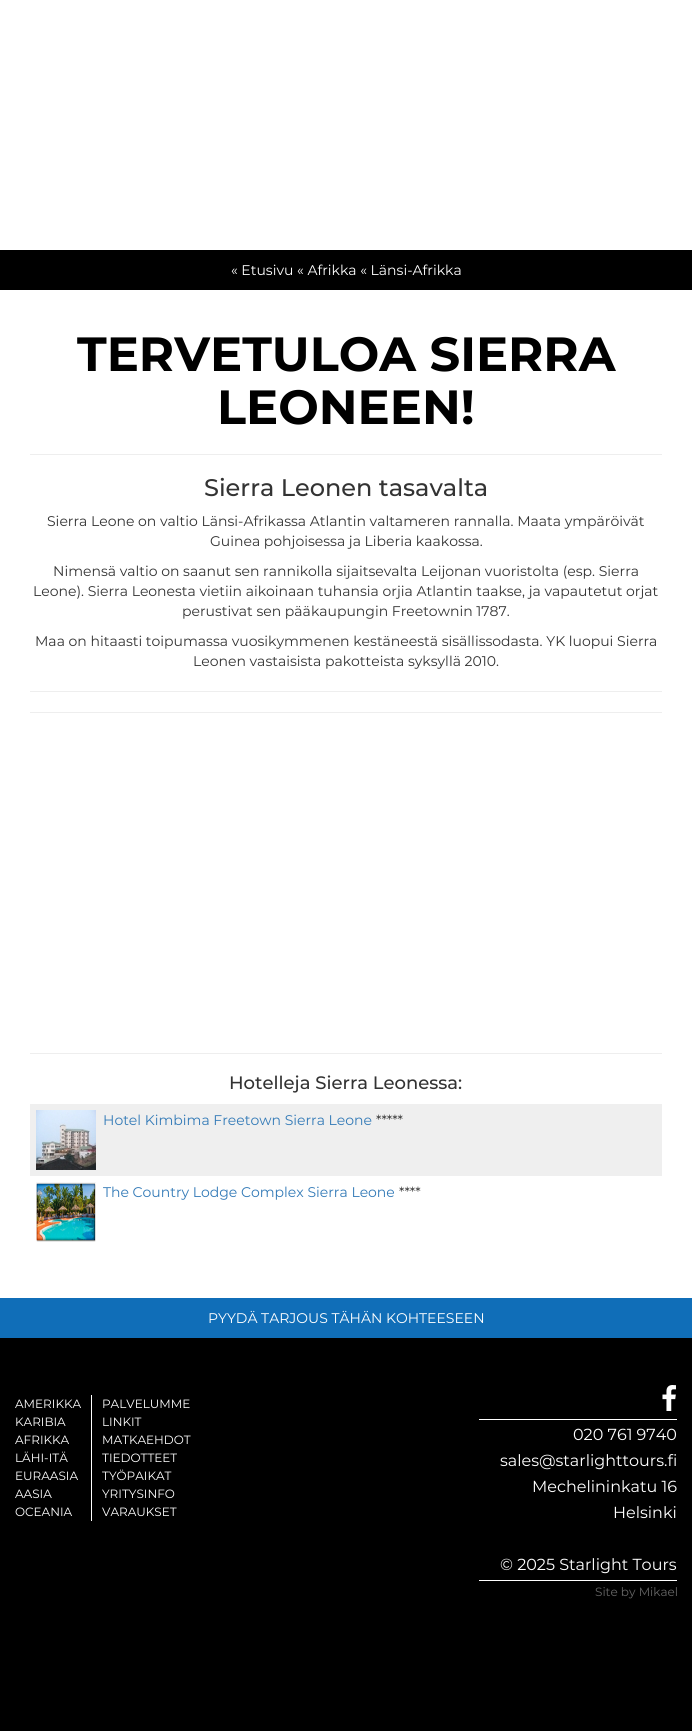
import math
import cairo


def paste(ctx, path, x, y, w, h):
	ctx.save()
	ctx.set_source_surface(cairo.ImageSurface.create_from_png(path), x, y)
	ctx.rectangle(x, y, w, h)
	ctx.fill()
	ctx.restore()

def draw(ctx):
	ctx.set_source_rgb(1, 1, 1)
	ctx.paint()
	ctx.set_source_rgb(0, 0, 0)
	ctx.rectangle(0, 250, 692, 40)
	ctx.fill()
	ctx.select_font_face('Montserrat')
	ctx.set_font_size(14)
	ctx.set_source_rgb(1, 1, 1)
	ctx.move_to(231, 275)
	ctx.show_text('« Etusivu « Afrikka « Länsi-Afrikka')
	ctx.select_font_face('Montserrat', cairo.FONT_SLANT_NORMAL, cairo.FONT_WEIGHT_BOLD)
	ctx.set_font_size(48)
	ctx.set_source_rgb(0, 0, 0)
	ctx.move_to(77, 371)
	ctx.show_text('TERVETULOA SIERRA')
	ctx.move_to(217, 424)
	ctx.show_text('LEONEEN!')
	ctx.set_source_rgb(0.933, 0.933, 0.933)
	ctx.rectangle(30, 454, 632, 1)
	ctx.fill()
	ctx.select_font_face('Montserrat Medium')
	ctx.set_font_size(24)
	ctx.set_source_rgb(0.2, 0.2, 0.2)
	ctx.move_to(204, 496)
	ctx.show_text('Sierra Leonen tasavalta')
	ctx.select_font_face('Montserrat')
	ctx.set_font_size(14)
	for x, y, s in [
		(47, 526, 'Sierra Leone on valtio Länsi-Afrikassa Atlantin valtameren rannalla. Maata ympäröivät'),
		(210, 546, 'Guinea pohjoisessa ja Liberia kaakossa.'),
		(53, 576, 'Nimensä valtio on saanut sen rannikolla sijaitsevalta Leijonan vuoristolta (esp. Sierra'),
		(33, 596, 'Leone). Sierra Leonesta vietiin aikoinaan tuhansia orjia Atlantin taakse, ja vapautetut orjat'),
		(182, 616, 'perustivat sen pääkaupungin Freetownin 1787.'),
		(35, 646, 'Maa on hitaasti toipumassa vuosikymmenen kestäneestä sisällissodasta. YK luopui Sierra'),
		(193, 666, 'Leonen vastaisista pakotteista syksyllä 2010.'),
	]:
		ctx.move_to(x, y)
		ctx.show_text(s)
	ctx.set_source_rgb(0.933, 0.933, 0.933)
	ctx.rectangle(30, 691, 632, 1)
	ctx.rectangle(30, 712, 632, 1)
	ctx.rectangle(30, 1053, 632, 1)
	ctx.fill()
	ctx.select_font_face('Montserrat Medium')
	ctx.set_font_size(18)
	ctx.set_source_rgb(0.2, 0.2, 0.2)
	ctx.move_to(229, 1089)
	ctx.show_text('Hotelleja Sierra Leonessa:')
	ctx.set_source_rgb(0.937, 0.937, 0.937)
	ctx.rectangle(30, 1104, 632, 72)
	ctx.fill()
	paste(ctx, 'media/1.png', 36, 1110, 60, 60)
	ctx.select_font_face('Montserrat')
	ctx.set_font_size(14)
	ctx.set_source_rgb(0.2, 0.478, 0.718)
	ctx.move_to(103, 1125)
	ctx.show_text('Hotel Kimbima Freetown Sierra Leone')
	ctx.set_source_rgb(0.2, 0.2, 0.2)
	ctx.move_to(376, 1125)
	ctx.show_text('*****')
	paste(ctx, 'media/2.png', 36, 1182, 60, 60)
	ctx.set_source_rgb(0.2, 0.478, 0.718)
	ctx.move_to(103, 1197)
	ctx.show_text('The Country Lodge Complex Sierra Leone')
	ctx.set_source_rgb(0.2, 0.2, 0.2)
	ctx.move_to(399, 1197)
	ctx.show_text('****')
	ctx.set_source_rgb(0.063, 0.431, 0.722)
	ctx.rectangle(0, 1298, 692, 40)
	ctx.fill()
	ctx.set_source_rgb(1, 1, 1)
	ctx.move_to(208, 1323)
	ctx.show_text('PYYDÄ TARJOUS TÄHÄN KOHTEESEEN')
	ctx.set_source_rgb(0, 0, 0)
	ctx.rectangle(0, 1338, 692, 393)
	ctx.fill()
	ctx.set_source_rgb(1, 1, 1)
	ctx.rectangle(91, 1395, 1, 126)
	ctx.fill()
	ctx.set_font_size(12)
	for x, y, s in [
		(15, 1408, 'AMERIKKA'),
		(15, 1426, 'KARIBIA'),
		(15, 1444, 'AFRIKKA'),
		(15, 1462, 'LÄHI-ITÄ'),
		(15, 1480, 'EURAASIA'),
		(15, 1498, 'AASIA'),
		(15, 1516, 'OCEANIA'),
		(102, 1408, 'PALVELUMME'),
		(102, 1426, 'LINKIT'),
		(102, 1444, 'MATKAEHDOT'),
		(102, 1462, 'TIEDOTTEET'),
		(102, 1480, 'TYÖPAIKAT'),
		(102, 1498, 'YRITYSINFO'),
		(102, 1516, 'VARAUKSET'),
	]:
		ctx.move_to(x, y)
		ctx.show_text(s)
	ctx.rectangle(479, 1419, 198, 1)
	ctx.fill()
	paste(ctx, 'media/3.png', 662, 1385, 14, 26)
	ctx.rectangle(479, 1580, 198, 1)
	ctx.fill()
	ctx.set_font_size(16)
	for x, y, s in [
		(573, 1440, '020 761 9740'),
		(500, 1466, 'sales@starlighttours.fi'),
		(532, 1492, 'Mechelininkatu 16'),
		(613, 1518, 'Helsinki'),
		(500, 1570, '© 2025 Starlight Tours'),
	]:
		ctx.move_to(x, y)
		ctx.show_text(s)
	ctx.set_font_size(12)
	ctx.set_source_rgb(0.4, 0.4, 0.4)
	ctx.move_to(595, 1596)
	ctx.show_text('Site by Mikael')


surface = cairo.ImageSurface(cairo.FORMAT_RGB24, 692, 1731)
ctx = cairo.Context(surface)
options = cairo.FontOptions()
options.set_hint_metrics(cairo.HINT_METRICS_OFF)
options.set_hint_style(cairo.HINT_STYLE_NONE)
ctx.set_font_options(options)
ctx.set_miter_limit(4)
draw(ctx)
surface.write_to_png('image.png')
